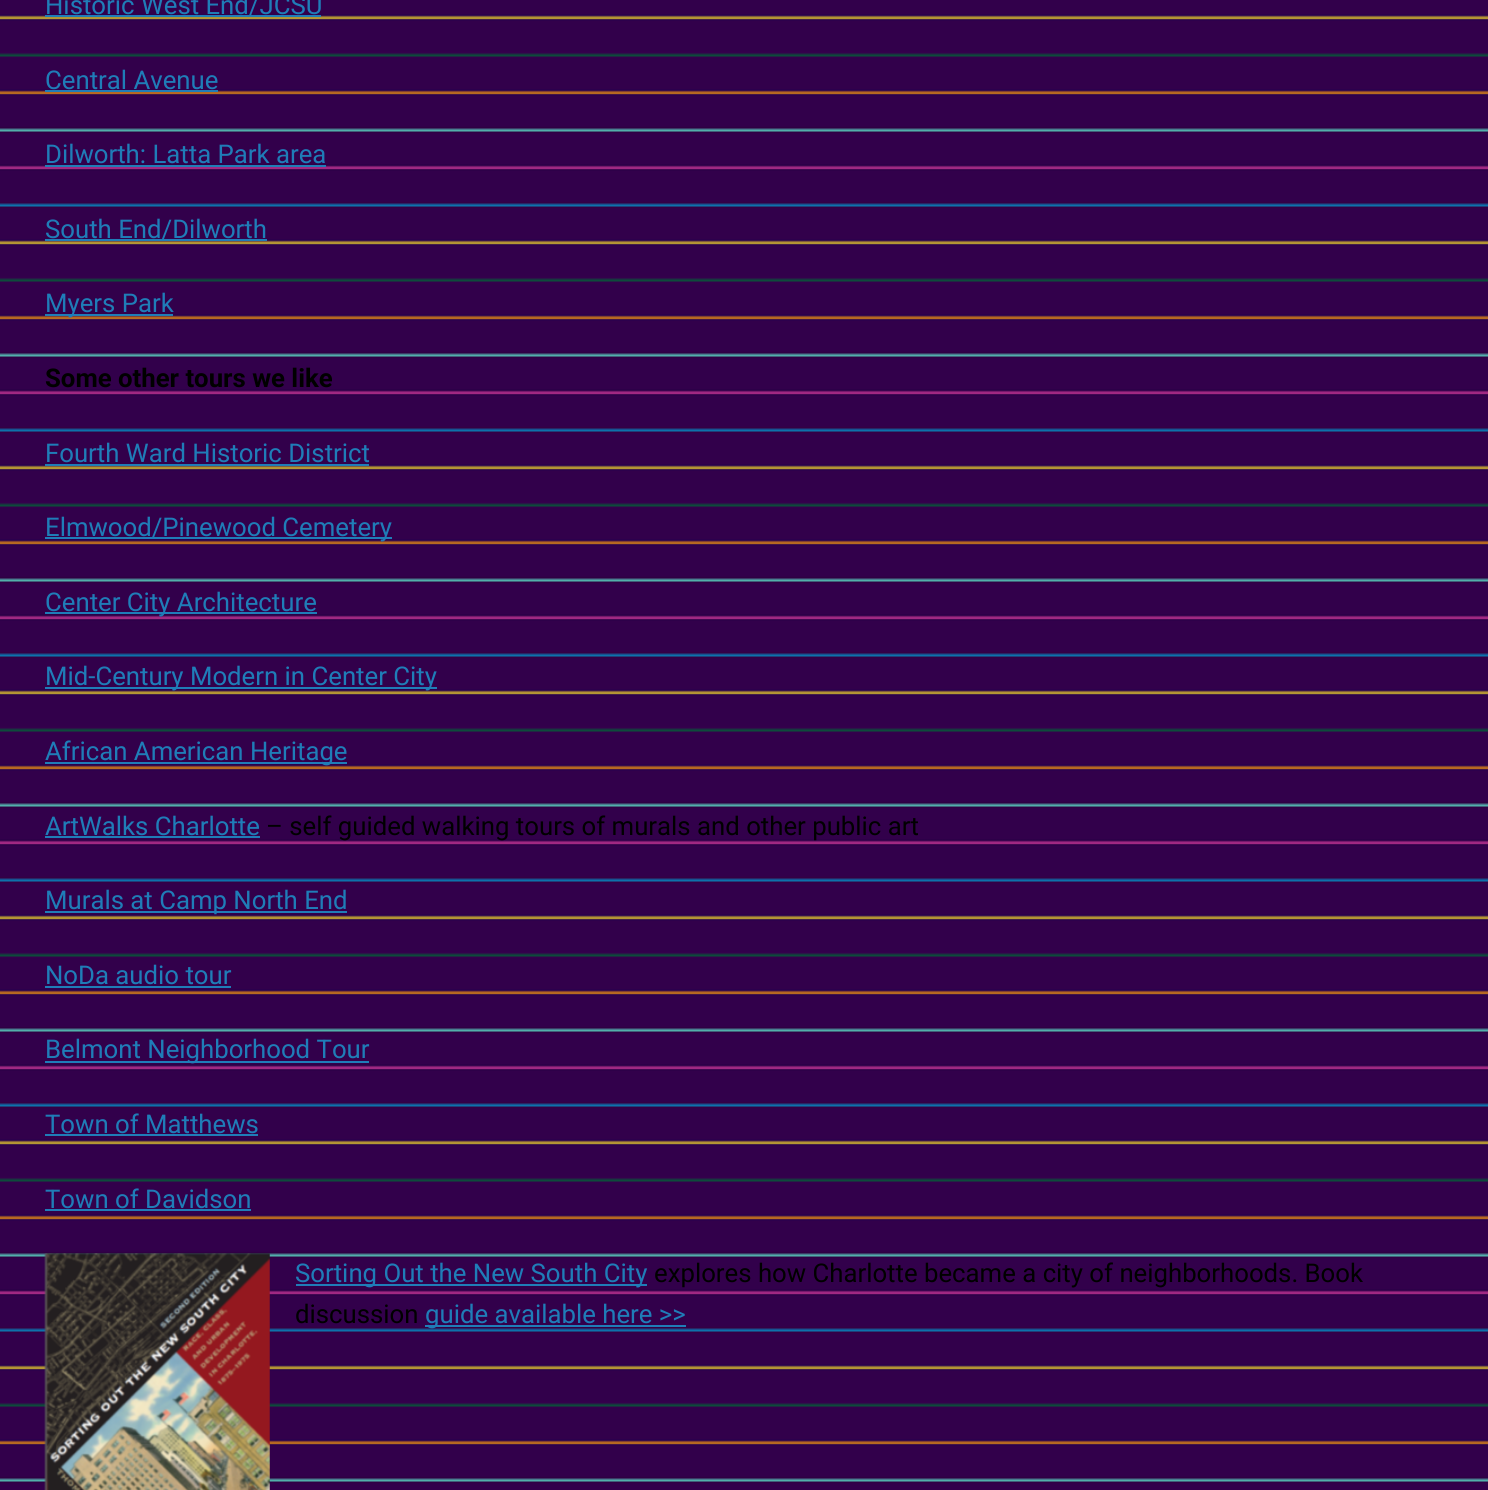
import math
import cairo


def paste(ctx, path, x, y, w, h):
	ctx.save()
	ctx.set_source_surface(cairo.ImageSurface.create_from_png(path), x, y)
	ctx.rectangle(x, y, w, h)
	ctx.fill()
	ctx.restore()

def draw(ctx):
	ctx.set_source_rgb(1, 1, 1)
	ctx.paint()
	paste(ctx, 'media/1.png', 0, 0, 1488, 1490)
	ctx.set_source_rgb(0.122, 0.49, 0.722)
	ctx.rectangle(45, 15, 276, 2)
	ctx.fill()
	ctx.select_font_face('Roboto')
	ctx.set_font_size(25.75)
	ctx.move_to(45, 14)
	ctx.show_text('Historic West End/JCSU')
	ctx.move_to(45, 89)
	ctx.show_text('Central Avenue')
	ctx.rectangle(45, 90, 173, 2)
	ctx.fill()
	ctx.move_to(45, 163)
	ctx.show_text('Dilworth: Latta Park area')
	ctx.rectangle(45, 165, 281, 2)
	ctx.fill()
	ctx.rectangle(45, 239, 222, 2)
	ctx.fill()
	ctx.move_to(45, 238)
	ctx.show_text('South End/Dilworth')
	ctx.rectangle(45, 314, 128, 2)
	ctx.fill()
	ctx.move_to(45, 312)
	ctx.show_text('Myers Park')
	ctx.select_font_face('Roboto', cairo.FONT_SLANT_NORMAL, cairo.FONT_WEIGHT_BOLD)
	ctx.set_source_rgb(0, 0, 0)
	ctx.move_to(45, 387)
	ctx.show_text('Some other tours we like')
	ctx.select_font_face('Roboto')
	ctx.set_source_rgb(0.122, 0.49, 0.722)
	ctx.move_to(45, 462)
	ctx.show_text('Fourth Ward Historic District')
	ctx.rectangle(45, 464, 324, 2)
	ctx.fill()
	ctx.rectangle(45, 537, 347, 2)
	ctx.fill()
	ctx.move_to(45, 536)
	ctx.show_text('Elmwood/Pinewood Cemetery')
	ctx.rectangle(45, 612, 272, 2)
	ctx.fill()
	ctx.move_to(45, 611)
	ctx.show_text('Center City Architecture')
	ctx.rectangle(45, 687, 392, 2)
	ctx.fill()
	ctx.move_to(45, 685)
	ctx.show_text('Mid-Century Modern in Center City')
	ctx.rectangle(45, 762, 302, 2)
	ctx.fill()
	ctx.move_to(45, 760)
	ctx.show_text('African American Heritage')
	ctx.move_to(45, 835)
	ctx.show_text('ArtWalks Charlotte')
	ctx.rectangle(45, 836, 215, 2)
	ctx.fill()
	ctx.set_source_rgb(0, 0, 0)
	ctx.move_to(266, 835)
	ctx.show_text('– self guided walking tours of murals and other public art')
	ctx.set_source_rgb(0.122, 0.49, 0.722)
	ctx.rectangle(45, 911, 302, 2)
	ctx.fill()
	ctx.move_to(45, 909)
	ctx.show_text('Murals at Camp North End')
	ctx.move_to(45, 984)
	ctx.show_text('NoDa audio tour')
	ctx.rectangle(45, 986, 186, 2)
	ctx.fill()
	ctx.rectangle(45, 1061, 324, 2)
	ctx.fill()
	ctx.move_to(45, 1058)
	ctx.show_text('Belmont Neighborhood Tour')
	ctx.move_to(45, 1133)
	ctx.show_text('Town of Matthews')
	ctx.rectangle(45, 1134, 213, 2)
	ctx.fill()
	ctx.move_to(45, 1208)
	ctx.show_text('Town of Davidson')
	ctx.rectangle(45, 1209, 206, 2)
	ctx.fill()
	paste(ctx, 'media/2.png', 44, 1253, 226, 237)
	ctx.rectangle(296, 1284, 351, 2)
	ctx.fill()
	ctx.move_to(295, 1282)
	ctx.show_text('Sorting Out the New South City')
	ctx.set_source_rgb(0, 0, 0)
	ctx.move_to(654, 1282)
	ctx.show_text('explores how Charlotte became a city of neighborhoods. Book')
	ctx.move_to(295, 1323)
	ctx.show_text('discussion')
	ctx.set_source_rgb(0.122, 0.49, 0.722)
	ctx.rectangle(425, 1325, 261, 2)
	ctx.fill()
	ctx.move_to(425, 1323)
	ctx.show_text('guide available here >>')


surface = cairo.ImageSurface(cairo.FORMAT_RGB24, 1488, 1490)
ctx = cairo.Context(surface)
options = cairo.FontOptions()
options.set_hint_metrics(cairo.HINT_METRICS_OFF)
options.set_hint_style(cairo.HINT_STYLE_NONE)
ctx.set_font_options(options)
ctx.set_miter_limit(4)
draw(ctx)
surface.write_to_png('image.png')
